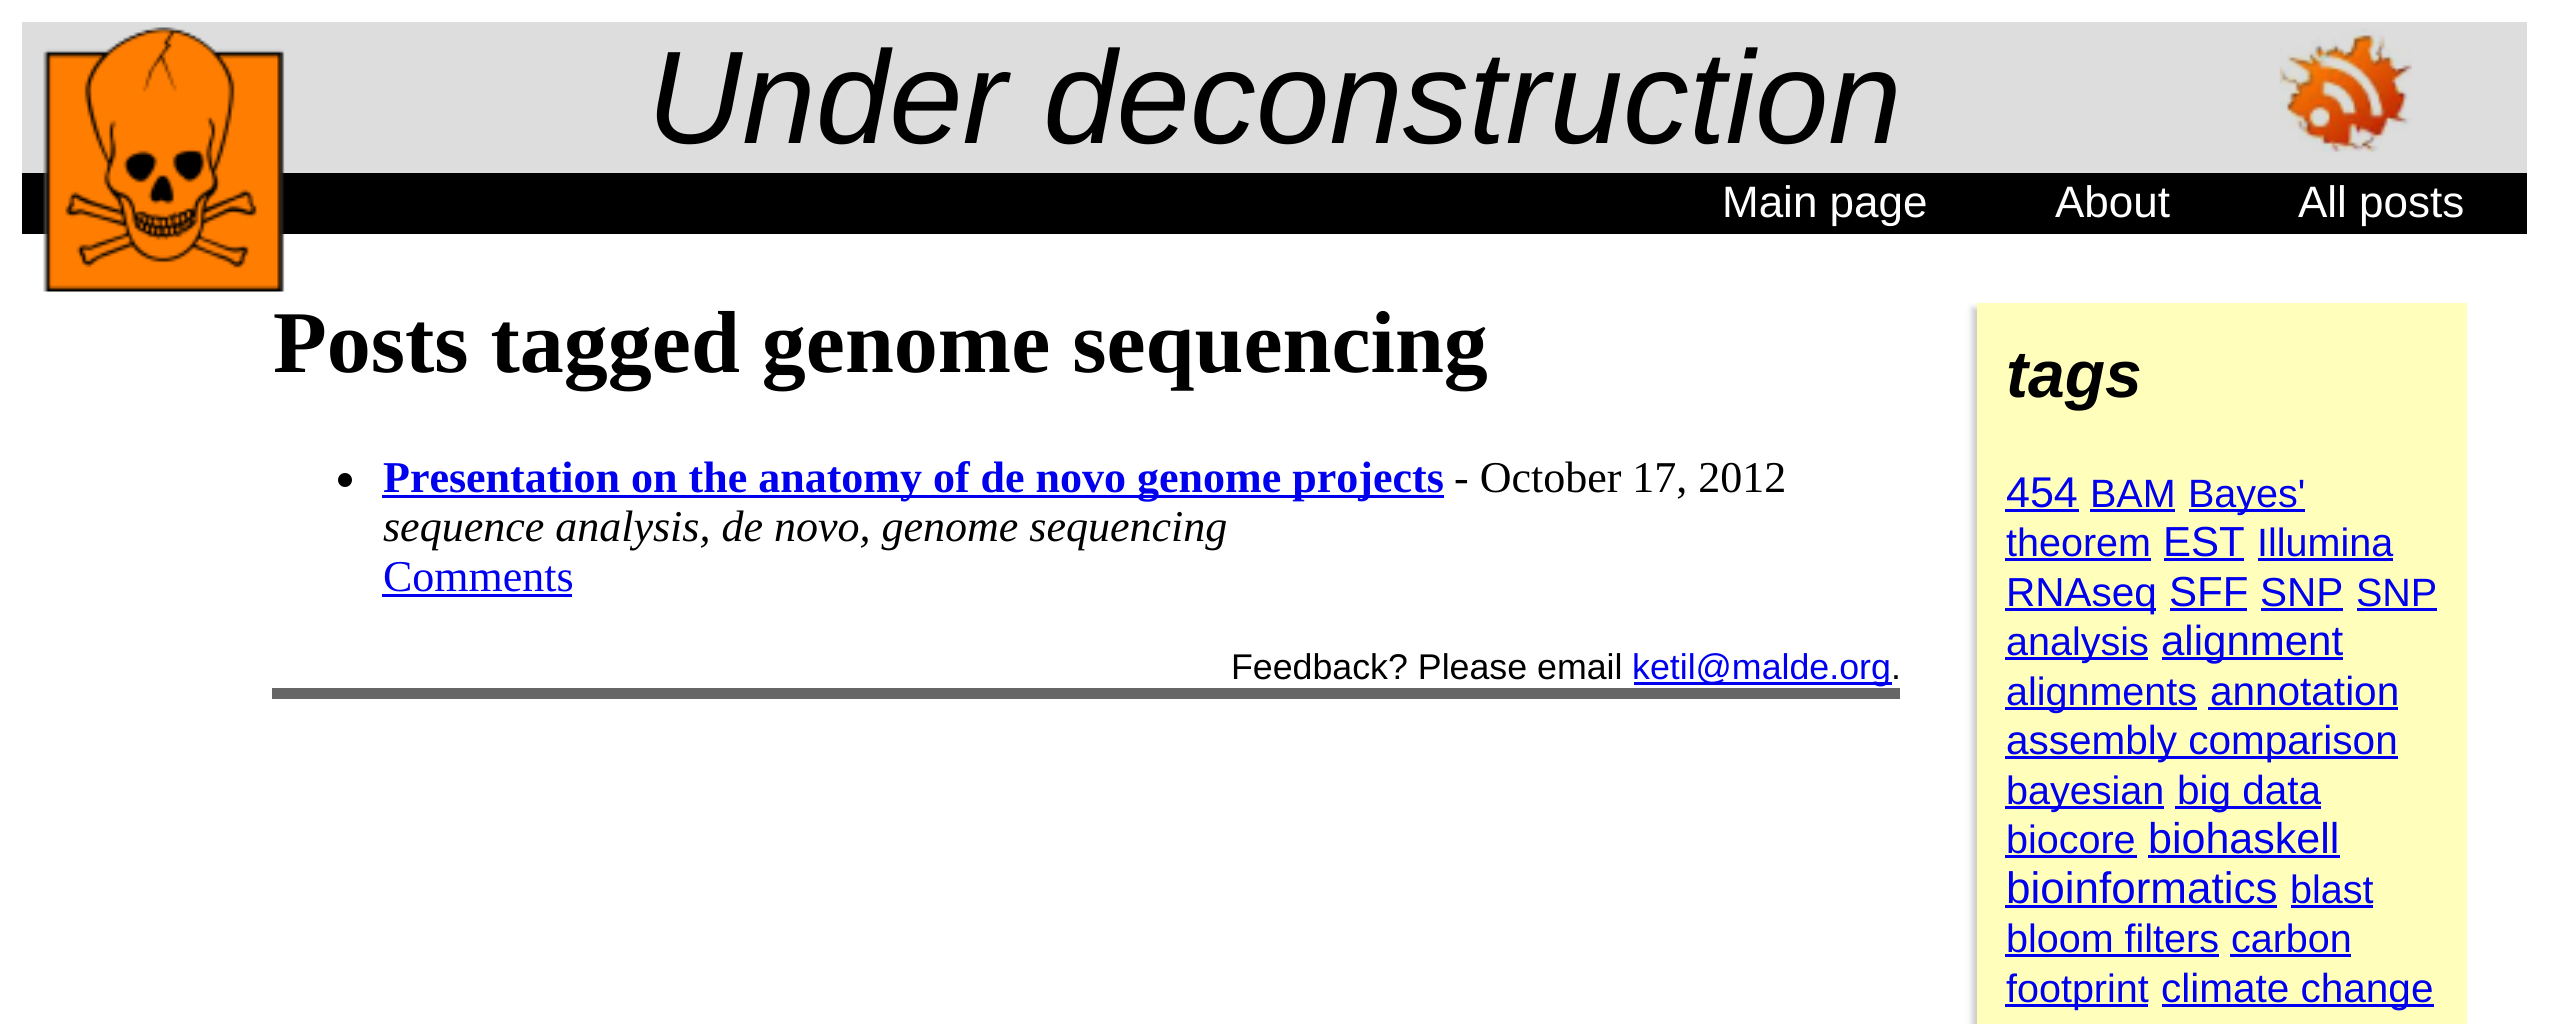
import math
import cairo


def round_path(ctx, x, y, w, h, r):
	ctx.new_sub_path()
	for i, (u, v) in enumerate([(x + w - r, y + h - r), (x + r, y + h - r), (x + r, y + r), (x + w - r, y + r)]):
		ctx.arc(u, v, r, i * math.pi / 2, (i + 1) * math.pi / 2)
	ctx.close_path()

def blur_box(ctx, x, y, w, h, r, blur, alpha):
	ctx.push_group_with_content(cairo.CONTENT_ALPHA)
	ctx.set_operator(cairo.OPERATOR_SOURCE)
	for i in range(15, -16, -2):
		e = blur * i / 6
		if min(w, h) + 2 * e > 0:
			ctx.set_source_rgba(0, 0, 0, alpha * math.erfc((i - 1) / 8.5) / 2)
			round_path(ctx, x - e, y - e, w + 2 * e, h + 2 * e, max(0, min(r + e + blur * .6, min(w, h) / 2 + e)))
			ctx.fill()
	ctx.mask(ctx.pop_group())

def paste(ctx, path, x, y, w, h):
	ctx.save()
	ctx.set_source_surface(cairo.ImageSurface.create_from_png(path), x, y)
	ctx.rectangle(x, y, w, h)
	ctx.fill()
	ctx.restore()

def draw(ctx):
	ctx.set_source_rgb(1, 1, 1)
	ctx.paint()
	ctx.set_source_rgb(0.867, 0.867, 0.867)
	ctx.rectangle(22, 22, 2505, 151)
	ctx.fill()
	ctx.set_source_rgb(0, 0, 0)
	ctx.rectangle(22, 173, 2505, 61)
	ctx.fill()
	paste(ctx, 'media/1.png', 43, 27, 242, 265)
	ctx.select_font_face('Liberation Sans', cairo.FONT_SLANT_ITALIC)
	ctx.set_font_size(132)
	ctx.move_to(647, 143)
	ctx.show_text('Under deconstruction')
	paste(ctx, 'media/2.png', 2279, 28, 133, 125)
	ctx.select_font_face('Liberation Sans')
	ctx.set_font_size(44)
	ctx.set_source_rgb(1, 1, 1)
	for x, y, s in [
		(1722, 217, 'Main page'),
		(2055, 217, 'About'),
		(2298, 217, 'All posts'),
	]:
		ctx.move_to(x, y)
		ctx.show_text(s)
	ctx.select_font_face('Liberation Serif', cairo.FONT_SLANT_NORMAL, cairo.FONT_WEIGHT_BOLD)
	ctx.set_font_size(88)
	ctx.set_source_rgb(0, 0, 0)
	ctx.move_to(273, 372)
	ctx.show_text('Posts tagged genome sequencing')
	ctx.set_source_rgb(0.8, 0.8, 0.8)
	blur_box(ctx, 1972, 308, 489, 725, 0, 3, 1)
	ctx.set_source_rgb(1, 1, 0.733)
	ctx.rectangle(1977, 303, 490, 721)
	ctx.fill()
	ctx.select_font_face('Liberation Sans', cairo.FONT_SLANT_ITALIC, cairo.FONT_WEIGHT_BOLD)
	ctx.set_font_size(66)
	ctx.set_source_rgb(0, 0, 0)
	ctx.move_to(2006, 397)
	ctx.show_text('tags')
	ctx.select_font_face('Liberation Sans')
	ctx.set_font_size(43)
	ctx.set_source_rgb(0, 0, 0.933)
	ctx.move_to(2006, 507)
	ctx.show_text('454')
	ctx.rectangle(2005, 509, 74, 3)
	ctx.fill()
	ctx.set_font_size(39.5)
	ctx.move_to(2090, 507)
	ctx.show_text('BAM')
	ctx.rectangle(2090, 509, 85, 3)
	ctx.fill()
	ctx.rectangle(2189, 509, 116, 3)
	ctx.fill()
	ctx.move_to(2188, 507)
	ctx.show_text('Bayes\'')
	ctx.move_to(2006, 556)
	ctx.show_text('theorem')
	ctx.rectangle(2005, 558, 146, 3)
	ctx.fill()
	ctx.set_font_size(42)
	ctx.move_to(2163, 556)
	ctx.show_text('EST')
	ctx.rectangle(2164, 558, 80, 3)
	ctx.fill()
	ctx.set_font_size(39.5)
	ctx.move_to(2257, 556)
	ctx.show_text('Illumina')
	ctx.rectangle(2258, 558, 135, 3)
	ctx.fill()
	ctx.rectangle(2005, 608, 151, 3)
	ctx.fill()
	ctx.set_font_size(40.5)
	ctx.move_to(2006, 606)
	ctx.show_text('RNAseq')
	ctx.set_font_size(42)
	ctx.move_to(2169, 606)
	ctx.show_text('SFF')
	ctx.rectangle(2170, 608, 77, 3)
	ctx.fill()
	ctx.set_font_size(40.5)
	ctx.move_to(2260, 606)
	ctx.show_text('SNP')
	ctx.rectangle(2261, 608, 82, 3)
	ctx.fill()
	ctx.set_font_size(39.5)
	ctx.move_to(2356, 606)
	ctx.show_text('SNP')
	ctx.rectangle(2357, 608, 80, 3)
	ctx.fill()
	ctx.rectangle(2005, 657, 143, 3)
	ctx.fill()
	ctx.move_to(2006, 655)
	ctx.show_text('analysis')
	ctx.rectangle(2162, 657, 181, 3)
	ctx.fill()
	ctx.set_font_size(42)
	ctx.move_to(2161, 655)
	ctx.show_text('alignment')
	ctx.rectangle(2005, 707, 192, 3)
	ctx.fill()
	ctx.set_font_size(39.5)
	ctx.move_to(2006, 705)
	ctx.show_text('alignments')
	ctx.set_font_size(40.5)
	ctx.move_to(2210, 705)
	ctx.show_text('annotation')
	ctx.rectangle(2208, 707, 190, 3)
	ctx.fill()
	ctx.rectangle(2005, 756, 393, 3)
	ctx.fill()
	ctx.move_to(2006, 754)
	ctx.show_text('assembly comparison')
	ctx.rectangle(2005, 806, 159, 3)
	ctx.fill()
	ctx.set_font_size(39.5)
	ctx.move_to(2006, 804)
	ctx.show_text('bayesian')
	ctx.rectangle(2175, 806, 146, 3)
	ctx.fill()
	ctx.set_font_size(40.5)
	ctx.move_to(2177, 804)
	ctx.show_text('big data')
	ctx.set_font_size(39.5)
	ctx.move_to(2006, 853)
	ctx.show_text('biocore')
	ctx.rectangle(2005, 855, 132, 3)
	ctx.fill()
	ctx.set_font_size(43)
	ctx.move_to(2148, 853)
	ctx.show_text('biohaskell')
	ctx.rectangle(2148, 855, 192, 3)
	ctx.fill()
	ctx.set_font_size(44)
	ctx.move_to(2006, 903)
	ctx.show_text('bioinformatics')
	ctx.rectangle(2005, 905, 272, 3)
	ctx.fill()
	ctx.set_font_size(39.5)
	ctx.move_to(2290, 903)
	ctx.show_text('blast')
	ctx.rectangle(2291, 905, 82, 3)
	ctx.fill()
	ctx.move_to(2006, 952)
	ctx.show_text('bloom filters')
	ctx.rectangle(2005, 954, 214, 3)
	ctx.fill()
	ctx.move_to(2231, 952)
	ctx.show_text('carbon')
	ctx.rectangle(2230, 954, 121, 3)
	ctx.fill()
	ctx.rectangle(2005, 1004, 143, 3)
	ctx.fill()
	ctx.move_to(2006, 1002)
	ctx.show_text('footprint')
	ctx.rectangle(2162, 1004, 272, 3)
	ctx.fill()
	ctx.set_font_size(40.5)
	ctx.move_to(2161, 1002)
	ctx.show_text('climate change')
	ctx.set_source_rgb(0, 0, 0)
	ctx.new_path()
	ctx.arc(345, 480, 7, 0, 2 * math.pi)
	ctx.fill()
	ctx.set_source_rgb(0, 0, 0.933)
	ctx.rectangle(382, 495, 1062, 3)
	ctx.fill()
	ctx.select_font_face('Liberation Serif', cairo.FONT_SLANT_NORMAL, cairo.FONT_WEIGHT_BOLD)
	ctx.set_font_size(44)
	ctx.move_to(383, 492)
	ctx.show_text('Presentation on the anatomy of de novo genome projects')
	ctx.select_font_face('Liberation Serif')
	ctx.set_source_rgb(0, 0, 0)
	ctx.move_to(1454, 492)
	ctx.show_text('- October 17, 2012')
	ctx.select_font_face('Liberation Serif', cairo.FONT_SLANT_ITALIC)
	ctx.move_to(383, 541)
	ctx.show_text('sequence analysis, de novo, genome sequencing')
	ctx.select_font_face('Liberation Serif')
	ctx.set_source_rgb(0, 0, 0.933)
	ctx.move_to(383, 591)
	ctx.show_text('Comments')
	ctx.rectangle(382, 594, 190, 3)
	ctx.fill()
	ctx.select_font_face('Liberation Sans')
	ctx.set_font_size(35.75)
	ctx.set_source_rgb(0, 0, 0)
	ctx.move_to(1231, 679)
	ctx.show_text('Feedback? Please email')
	ctx.set_source_rgb(0, 0, 0.933)
	ctx.rectangle(1634, 682, 258, 3)
	ctx.fill()
	ctx.move_to(1632, 679)
	ctx.show_text('ketil@malde.org')
	ctx.set_source_rgb(0, 0, 0)
	ctx.move_to(1891, 679)
	ctx.show_text('.')
	ctx.set_source_rgb(0.4, 0.4, 0.4)
	ctx.rectangle(272, 688, 1628, 11)
	ctx.fill()


surface = cairo.ImageSurface(cairo.FORMAT_RGB24, 2549, 1024)
ctx = cairo.Context(surface)
options = cairo.FontOptions()
options.set_hint_metrics(cairo.HINT_METRICS_OFF)
options.set_hint_style(cairo.HINT_STYLE_NONE)
ctx.set_font_options(options)
ctx.set_miter_limit(4)
draw(ctx)
surface.write_to_png('image.png')
